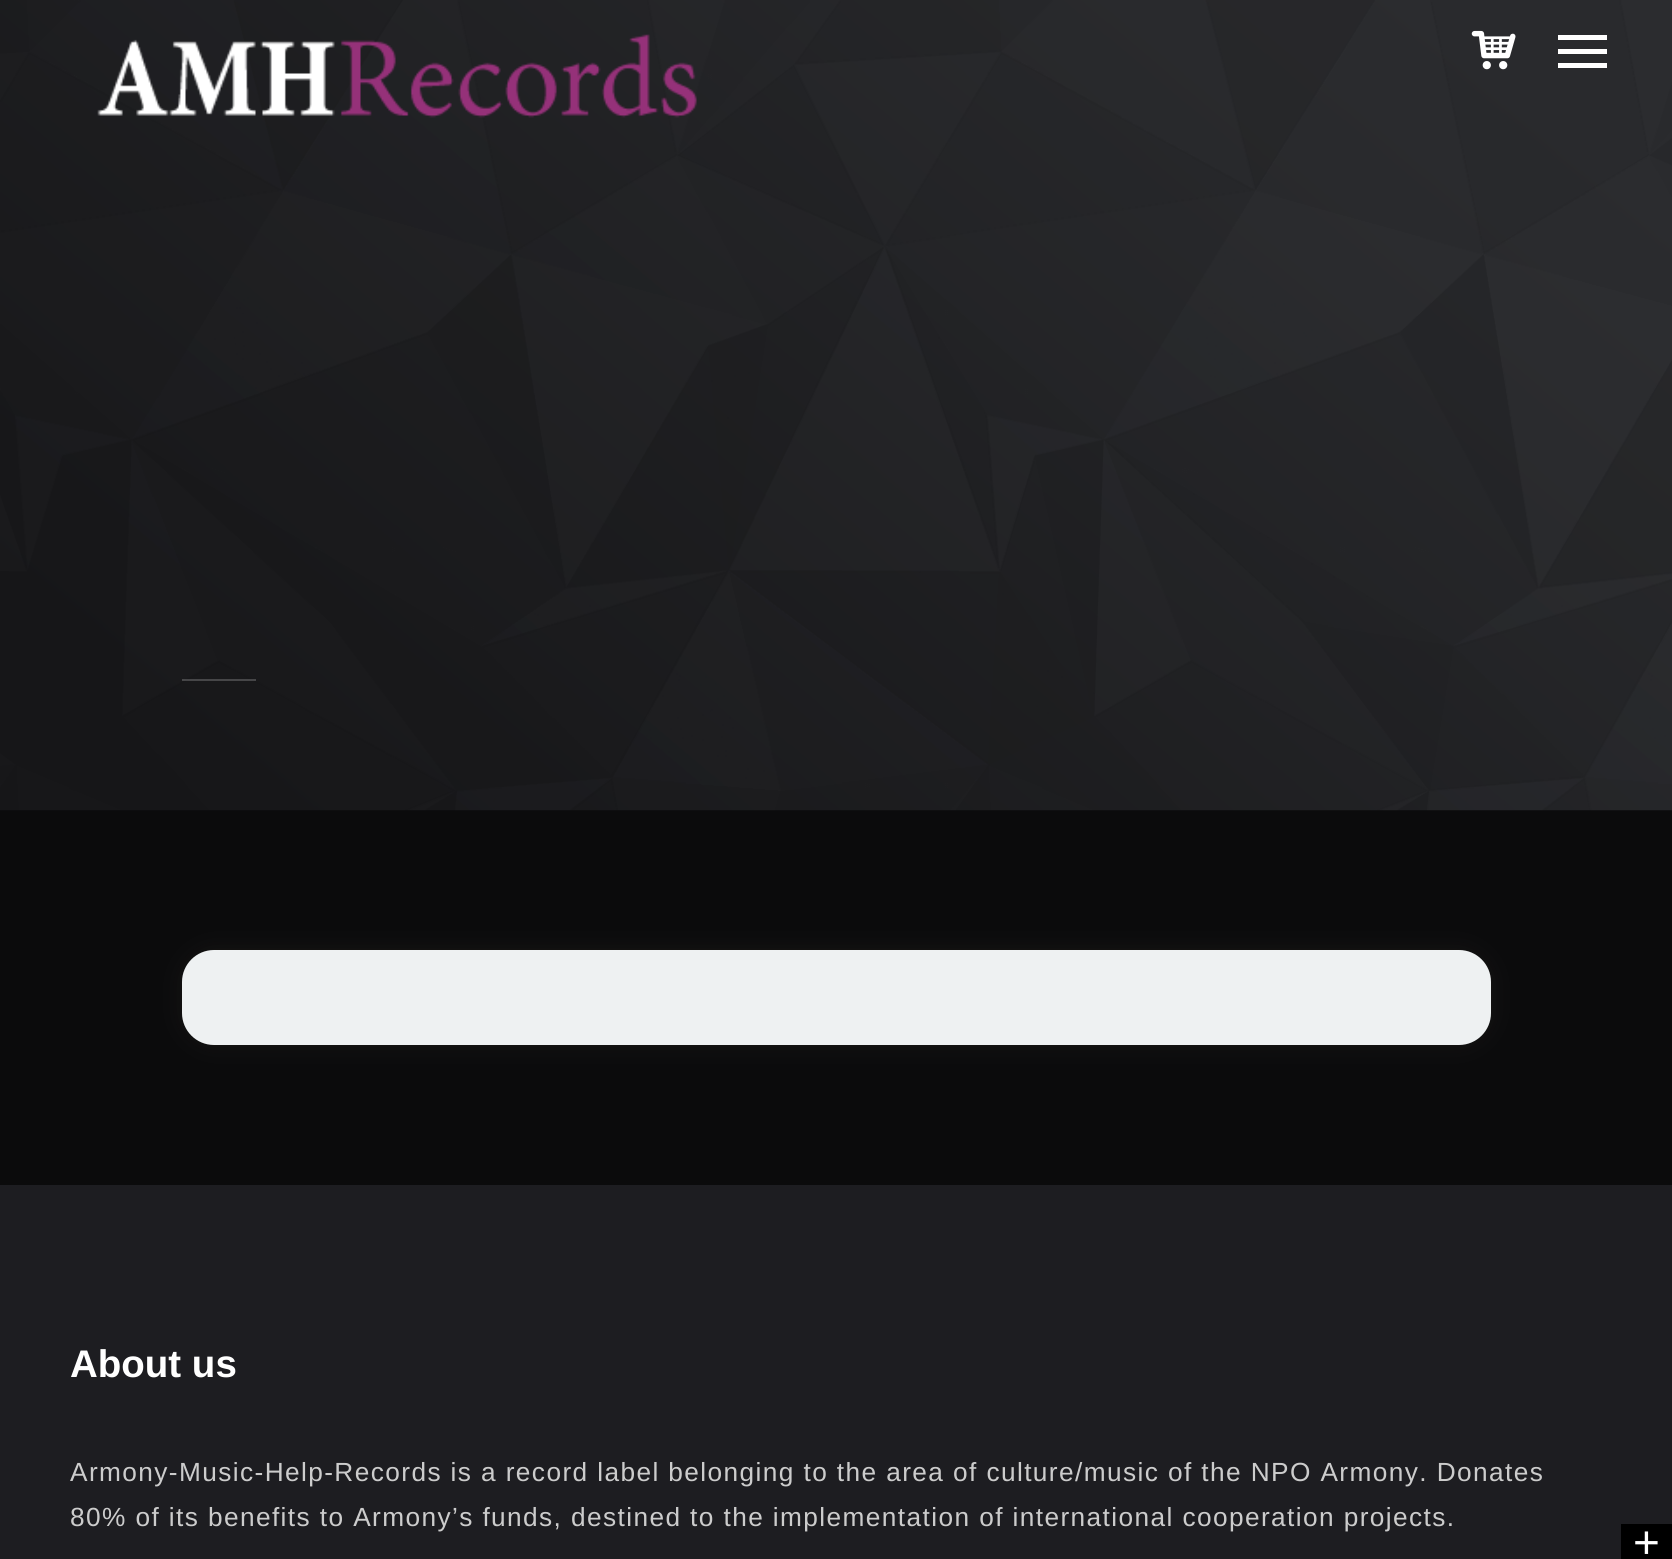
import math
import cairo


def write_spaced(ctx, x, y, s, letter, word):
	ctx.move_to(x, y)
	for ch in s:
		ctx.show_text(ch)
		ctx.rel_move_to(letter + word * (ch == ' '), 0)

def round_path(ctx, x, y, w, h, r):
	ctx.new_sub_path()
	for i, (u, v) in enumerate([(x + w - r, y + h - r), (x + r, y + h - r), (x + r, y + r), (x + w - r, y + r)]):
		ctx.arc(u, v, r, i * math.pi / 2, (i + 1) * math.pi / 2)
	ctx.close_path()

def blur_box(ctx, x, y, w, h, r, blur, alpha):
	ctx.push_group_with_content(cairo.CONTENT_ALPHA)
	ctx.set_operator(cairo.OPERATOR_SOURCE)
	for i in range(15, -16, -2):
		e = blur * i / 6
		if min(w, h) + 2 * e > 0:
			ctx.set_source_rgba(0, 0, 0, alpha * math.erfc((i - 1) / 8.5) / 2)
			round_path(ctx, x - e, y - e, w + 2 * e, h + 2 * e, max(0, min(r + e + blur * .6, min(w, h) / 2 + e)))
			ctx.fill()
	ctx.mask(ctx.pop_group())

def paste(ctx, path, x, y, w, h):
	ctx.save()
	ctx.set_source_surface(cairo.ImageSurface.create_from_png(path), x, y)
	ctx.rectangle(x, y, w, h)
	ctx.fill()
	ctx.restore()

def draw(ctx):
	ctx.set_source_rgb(0.043, 0.043, 0.047)
	ctx.paint()
	paste(ctx, 'media/1.png', 0, 0, 1672, 811)
	ctx.set_source_rgba(1, 1, 1, 0.2)
	ctx.rectangle(182, 679, 74, 2)
	ctx.fill()
	ctx.set_source_rgb(0.227, 0.2, 0.18)
	blur_box(ctx, 182, 950, 1309, 95, 32, 10.5, 0.26)
	ctx.set_source_rgb(0.933, 0.945, 0.949)
	round_path(ctx, 182, 950, 1309, 95, 32)
	ctx.fill()
	paste(ctx, 'media/2.png', 97, 34, 600, 84)
	paste(ctx, 'media/3.png', 1471, 30, 45, 40)
	ctx.set_source_rgb(1, 1, 1)
	ctx.rectangle(1558, 49, 49, 5)
	ctx.rectangle(1558, 35, 49, 5)
	ctx.rectangle(1558, 63, 49, 5)
	ctx.fill()
	ctx.set_source_rgb(0.114, 0.114, 0.129)
	ctx.rectangle(0, 1185, 1672, 374)
	ctx.fill()
	ctx.select_font_face('Liberation Sans', cairo.FONT_SLANT_NORMAL, cairo.FONT_WEIGHT_BOLD)
	ctx.set_font_size(38.5)
	ctx.set_source_rgb(1, 1, 1)
	ctx.move_to(70, 1377)
	ctx.show_text('About us')
	ctx.select_font_face('Liberation Sans')
	ctx.set_font_size(26.25)
	ctx.set_source_rgb(0.8, 0.8, 0.8)
	write_spaced(ctx, 70, 1481, 'Armony-Music-Help-Records is a record label belonging to the area of culture/music of the NPO Armony. Donates', 1.4, 0)
	write_spaced(ctx, 70, 1526, '80% of its benefits to Armony’s funds, destined to the implementation of international cooperation projects.', 1.4, 0)
	ctx.set_source_rgb(0, 0, 0)
	ctx.rectangle(1621, 1524, 51, 35)
	ctx.fill()
	ctx.set_font_size(46)
	ctx.set_source_rgb(1, 1, 1)
	write_spaced(ctx, 1633, 1558, '+', 1.4, 0)


surface = cairo.ImageSurface(cairo.FORMAT_RGB24, 1672, 1559)
ctx = cairo.Context(surface)
options = cairo.FontOptions()
options.set_hint_metrics(cairo.HINT_METRICS_OFF)
options.set_hint_style(cairo.HINT_STYLE_NONE)
ctx.set_font_options(options)
ctx.set_miter_limit(4)
draw(ctx)
surface.write_to_png('image.png')
